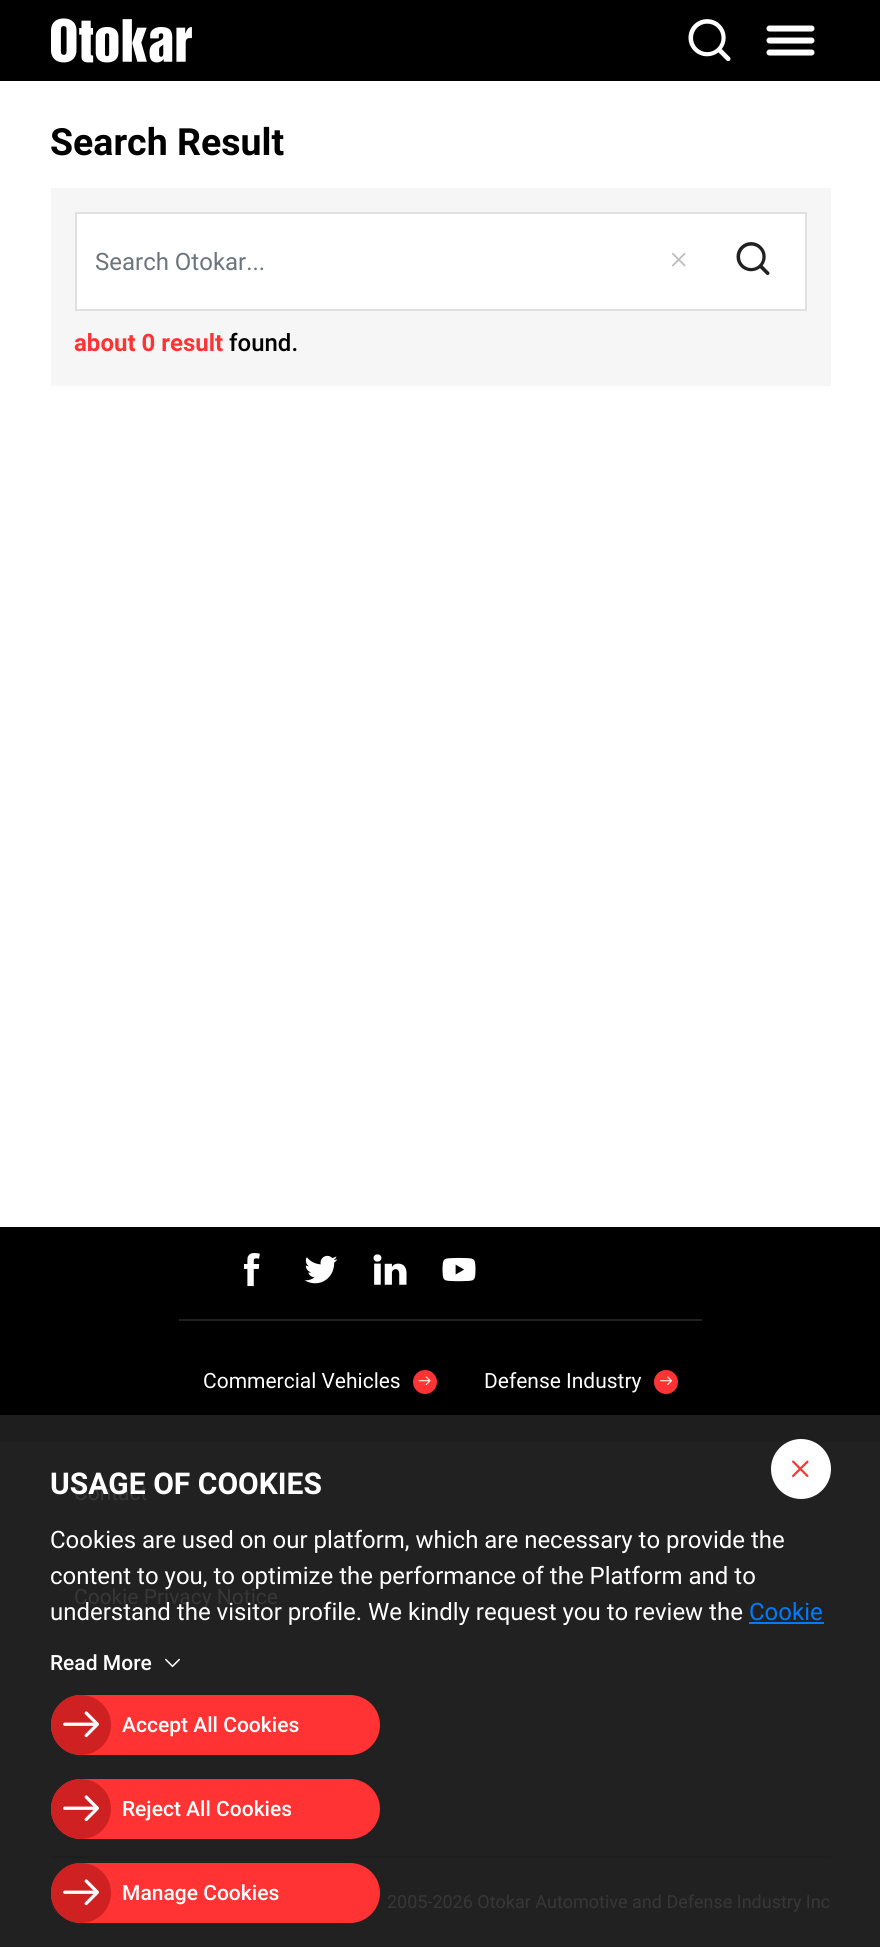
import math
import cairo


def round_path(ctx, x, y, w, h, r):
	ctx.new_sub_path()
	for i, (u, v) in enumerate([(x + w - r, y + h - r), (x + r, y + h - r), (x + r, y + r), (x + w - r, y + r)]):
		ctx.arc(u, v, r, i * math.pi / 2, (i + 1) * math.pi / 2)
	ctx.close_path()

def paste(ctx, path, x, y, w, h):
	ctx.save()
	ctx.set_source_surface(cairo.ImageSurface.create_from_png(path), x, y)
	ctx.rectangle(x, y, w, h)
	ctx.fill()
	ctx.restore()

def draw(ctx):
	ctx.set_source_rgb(1, 1, 1)
	ctx.paint()
	ctx.set_source_rgb(0, 0, 0)
	ctx.rectangle(0, 0, 880, 81)
	ctx.fill()
	paste(ctx, 'media/1.png', 51, 18, 141, 45)
	paste(ctx, 'media/2.png', 688, 19, 43, 43)
	paste(ctx, 'media/3.png', 766, 25, 49, 31)
	ctx.select_font_face('Roboto', cairo.FONT_SLANT_NORMAL, cairo.FONT_WEIGHT_BOLD)
	ctx.set_font_size(37.5)
	ctx.move_to(50, 155)
	ctx.show_text('Search Result')
	ctx.set_source_rgb(0.961, 0.961, 0.961)
	ctx.rectangle(51, 188, 780, 198)
	ctx.fill()
	ctx.set_source_rgb(1, 1, 1)
	ctx.rectangle(76, 213, 730, 97)
	ctx.fill_preserve()
	ctx.set_source_rgb(0.878, 0.878, 0.878)
	ctx.stroke()
	ctx.select_font_face('Roboto')
	ctx.set_font_size(24)
	ctx.set_source_rgb(0.424, 0.459, 0.49)
	ctx.move_to(95, 270)
	ctx.show_text('Search Otokar...')
	paste(ctx, 'media/4.png', 672, 252, 14, 15)
	paste(ctx, 'media/5.png', 736, 242, 34, 33)
	ctx.select_font_face('Roboto', cairo.FONT_SLANT_NORMAL, cairo.FONT_WEIGHT_BOLD)
	ctx.set_source_rgb(1, 0.2, 0.2)
	ctx.move_to(74, 351)
	ctx.show_text('about 0 result')
	ctx.select_font_face('Roboto Medium')
	ctx.set_source_rgb(0, 0, 0)
	ctx.move_to(229, 351)
	ctx.show_text('found.')
	ctx.rectangle(0, 1227, 880, 188)
	ctx.fill()
	ctx.set_source_rgb(0.118, 0.118, 0.118)
	ctx.rectangle(0, 1415, 880, 27)
	ctx.fill()
	paste(ctx, 'media/6.png', 243, 1253, 17, 34)
	paste(ctx, 'media/7.png', 304, 1255, 34, 29)
	paste(ctx, 'media/8.png', 373, 1254, 34, 31)
	paste(ctx, 'media/9.png', 442, 1257, 34, 25)
	ctx.set_source_rgb(0.129, 0.129, 0.129)
	ctx.rectangle(179, 1319, 523, 2)
	ctx.fill()
	ctx.select_font_face('Roboto')
	ctx.set_font_size(21)
	ctx.set_source_rgb(1, 1, 1)
	ctx.move_to(203, 1388)
	ctx.show_text('Commercial Vehicles')
	ctx.set_source_rgb(1, 0.2, 0.2)
	ctx.new_path()
	ctx.arc(425, 1382, 12, 0, 2 * math.pi)
	ctx.fill()
	paste(ctx, 'media/10.png', 418, 1376, 13, 9)
	ctx.set_source_rgb(1, 1, 1)
	ctx.move_to(484, 1388)
	ctx.show_text('Defense Industry')
	ctx.set_source_rgb(1, 0.2, 0.2)
	ctx.new_path()
	ctx.arc(666, 1382, 12, 0, 2 * math.pi)
	ctx.fill()
	paste(ctx, 'media/11.png', 660, 1376, 12, 9)
	ctx.set_source_rgb(0.129, 0.129, 0.129)
	ctx.rectangle(0, 1442, 880, 505)
	ctx.fill()
	ctx.set_source_rgb(0.118, 0.118, 0.118)
	ctx.rectangle(51, 1856, 780, 2)
	ctx.fill()
	ctx.set_source_rgb(0.216, 0.216, 0.216)
	ctx.move_to(74, 1500)
	ctx.show_text('Contact')
	ctx.move_to(74, 1604)
	ctx.show_text('Cookie Privacy Notice')
	paste(ctx, 'media/12.png', 51, 1894, 12, 23)
	ctx.set_font_size(18)
	ctx.move_to(387, 1908)
	ctx.show_text('2005-2026 Otokar Automotive and Defense Industry Inc')
	ctx.select_font_face('Roboto', cairo.FONT_SLANT_NORMAL, cairo.FONT_WEIGHT_BOLD)
	ctx.set_font_size(30)
	ctx.set_source_rgb(1, 1, 1)
	ctx.move_to(50, 1494)
	ctx.show_text('USAGE OF COOKIES')
	ctx.new_path()
	ctx.arc(801, 1469, 30, 0, 2 * math.pi)
	ctx.fill()
	paste(ctx, 'media/13.png', 792, 1460, 17, 17)
	ctx.select_font_face('Roboto')
	ctx.set_font_size(24)
	for x, y, s in [
		(50, 1548, 'Cookies are used on our platform, which are necessary to provide the'),
		(50, 1584, 'content to you, to optimize the performance of the Platform and to'),
		(50, 1620, 'understand the visitor profile. We kindly request you to review the'),
	]:
		ctx.move_to(x, y)
		ctx.show_text(s)
	ctx.set_source_rgb(0, 0.482, 1)
	ctx.move_to(749, 1620)
	ctx.show_text('Cookie')
	ctx.rectangle(749, 1622, 75, 2)
	ctx.fill()
	ctx.select_font_face('Roboto Medium')
	ctx.set_font_size(21)
	ctx.set_source_rgb(1, 1, 1)
	ctx.move_to(50, 1670)
	ctx.show_text('Read More')
	paste(ctx, 'media/14.png', 165, 1658, 15, 10)
	ctx.set_source_rgb(1, 0.2, 0.2)
	round_path(ctx, 51, 1695, 329, 60, 30)
	ctx.fill()
	ctx.set_source_rgb(0.812, 0.129, 0.129)
	ctx.arc(81, 1725, 30, 0, 2 * math.pi)
	ctx.fill()
	paste(ctx, 'media/15.png', 63, 1711, 36, 27)
	ctx.set_source_rgb(1, 1, 1)
	ctx.move_to(122, 1732)
	ctx.show_text('Accept All Cookies')
	ctx.set_source_rgb(1, 0.2, 0.2)
	round_path(ctx, 51, 1779, 329, 60, 30)
	ctx.fill()
	ctx.set_source_rgb(0.812, 0.129, 0.129)
	ctx.arc(81, 1809, 30, 0, 2 * math.pi)
	ctx.fill()
	paste(ctx, 'media/15.png', 63, 1795, 36, 27)
	ctx.set_source_rgb(1, 1, 1)
	ctx.move_to(122, 1816)
	ctx.show_text('Reject All Cookies')
	ctx.set_source_rgb(1, 0.2, 0.2)
	round_path(ctx, 51, 1863, 329, 60, 30)
	ctx.fill()
	ctx.set_source_rgb(0.812, 0.129, 0.129)
	ctx.arc(81, 1893, 30, 0, 2 * math.pi)
	ctx.fill()
	paste(ctx, 'media/15.png', 63, 1879, 36, 27)
	ctx.set_source_rgb(1, 1, 1)
	ctx.move_to(122, 1900)
	ctx.show_text('Manage Cookies')


surface = cairo.ImageSurface(cairo.FORMAT_RGB24, 880, 1947)
ctx = cairo.Context(surface)
options = cairo.FontOptions()
options.set_hint_metrics(cairo.HINT_METRICS_OFF)
options.set_hint_style(cairo.HINT_STYLE_NONE)
ctx.set_font_options(options)
ctx.set_miter_limit(4)
draw(ctx)
surface.write_to_png('image.png')
